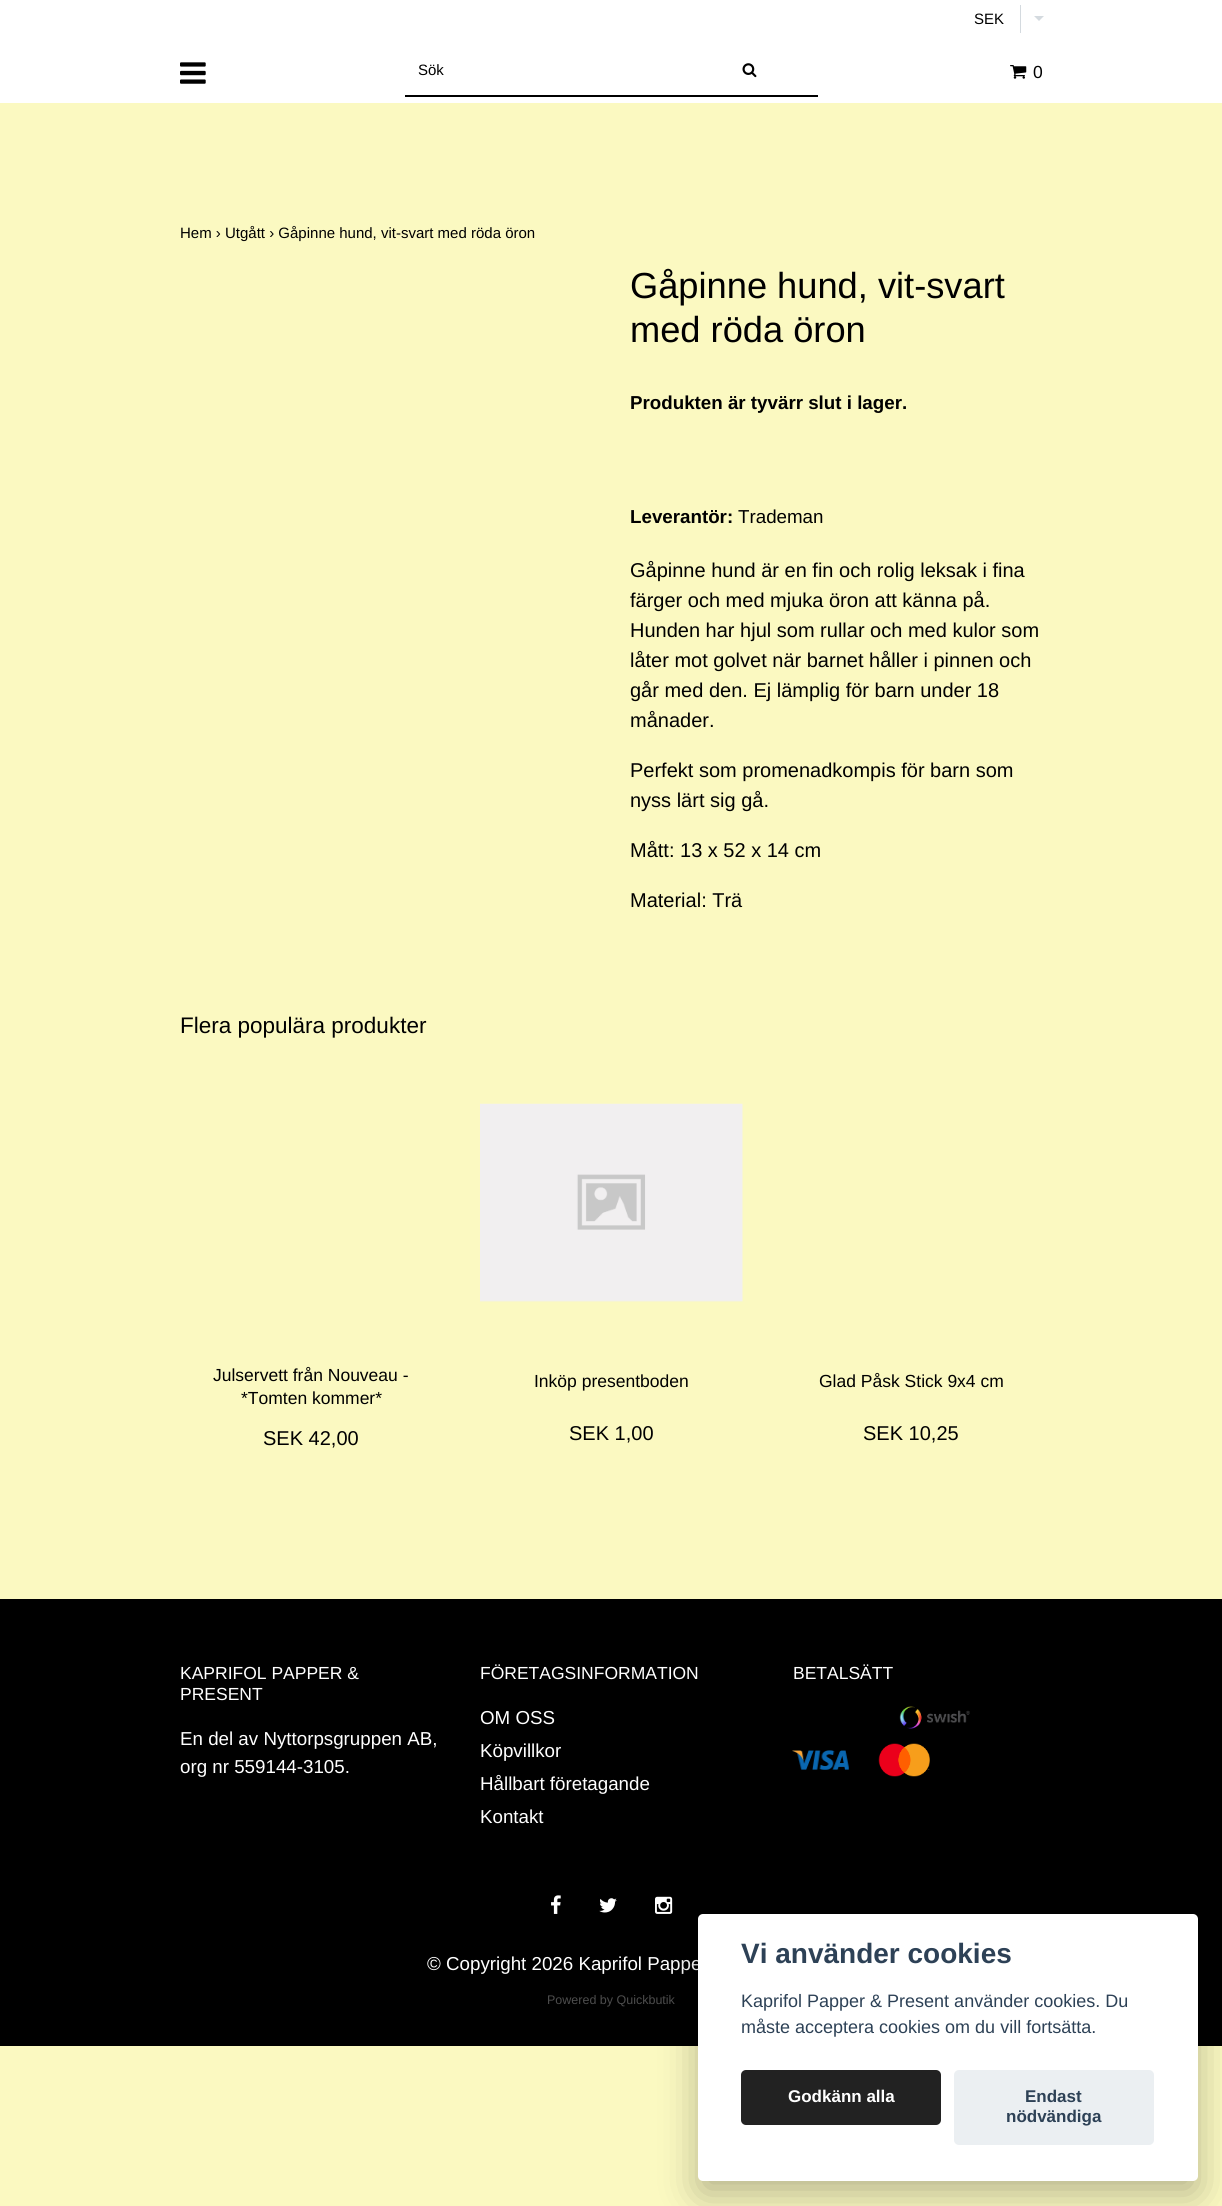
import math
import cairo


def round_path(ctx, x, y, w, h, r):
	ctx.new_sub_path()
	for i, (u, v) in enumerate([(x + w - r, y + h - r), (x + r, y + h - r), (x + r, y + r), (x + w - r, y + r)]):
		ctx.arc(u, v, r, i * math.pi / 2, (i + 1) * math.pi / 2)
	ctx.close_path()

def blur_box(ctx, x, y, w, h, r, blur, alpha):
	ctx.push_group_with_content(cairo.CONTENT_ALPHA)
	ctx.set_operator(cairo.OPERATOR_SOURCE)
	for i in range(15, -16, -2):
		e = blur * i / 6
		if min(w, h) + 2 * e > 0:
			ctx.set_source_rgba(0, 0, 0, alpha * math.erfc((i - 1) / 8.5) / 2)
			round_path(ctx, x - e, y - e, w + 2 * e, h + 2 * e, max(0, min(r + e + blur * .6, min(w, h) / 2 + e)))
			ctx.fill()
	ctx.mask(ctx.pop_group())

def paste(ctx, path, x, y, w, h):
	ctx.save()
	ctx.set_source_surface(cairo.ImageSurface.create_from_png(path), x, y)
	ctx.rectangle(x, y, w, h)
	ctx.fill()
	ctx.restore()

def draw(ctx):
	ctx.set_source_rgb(0.984, 0.976, 0.757)
	ctx.paint()
	ctx.set_source_rgb(1, 1, 1)
	ctx.rectangle(0, 0, 1222, 103)
	ctx.fill()
	ctx.select_font_face('Liberation Sans')
	ctx.set_font_size(15)
	ctx.set_source_rgb(0, 0, 0)
	ctx.move_to(974, 24)
	ctx.show_text('SEK')
	ctx.set_source_rgb(0.831, 0.855, 0.875)
	ctx.rectangle(1020, 5, 1, 28)
	ctx.fill()
	ctx.new_path()
	ctx.move_to(1034, 16)
	ctx.line_to(1044, 16)
	ctx.line_to(1039, 21)
	ctx.close_path()
	ctx.fill()
	paste(ctx, 'media/1.png', 180, 62, 26, 22)
	ctx.set_source_rgb(0, 0, 0)
	ctx.rectangle(405, 95, 413, 2)
	ctx.fill()
	ctx.move_to(418, 75)
	ctx.show_text('Sök')
	paste(ctx, 'media/2.png', 742, 63, 15, 15)
	paste(ctx, 'media/3.png', 1010, 65, 17, 14)
	ctx.set_font_size(17.5)
	ctx.move_to(1033, 78)
	ctx.show_text('0')
	ctx.set_font_size(15)
	ctx.move_to(180, 238)
	ctx.show_text('Hem › Utgått › Gåpinne hund, vit-svart med röda öron')
	ctx.set_font_size(36.25)
	ctx.move_to(630, 298)
	ctx.show_text('Gåpinne hund, vit-svart')
	ctx.move_to(630, 342)
	ctx.show_text('med röda öron')
	ctx.select_font_face('Liberation Sans', cairo.FONT_SLANT_NORMAL, cairo.FONT_WEIGHT_BOLD)
	ctx.set_font_size(18.75)
	ctx.move_to(630, 409)
	ctx.show_text('Produkten är tyvärr slut i lager.')
	ctx.move_to(630, 523)
	ctx.show_text('Leverantör:')
	ctx.select_font_face('Liberation Sans')
	ctx.move_to(738, 523)
	ctx.show_text('Trademan')
	ctx.set_font_size(20)
	for x, y, s in [
		(630, 577, 'Gåpinne hund är en fin och rolig leksak i fina'),
		(630, 607, 'färger och med mjuka öron att känna på.'),
		(630, 637, 'Hunden har hjul som rullar och med kulor som'),
		(630, 667, 'låter mot golvet när barnet håller i pinnen och'),
		(630, 697, 'går med den. Ej lämplig för barn under 18'),
		(630, 727, 'månader.'),
		(630, 777, 'Perfekt som promenadkompis för barn som'),
		(630, 807, 'nyss lärt sig gå.'),
		(630, 857, 'Mått: 13 x 52 x 14 cm'),
		(630, 907, 'Material: Trä'),
	]:
		ctx.move_to(x, y)
		ctx.show_text(s)
	ctx.set_font_size(22.5)
	ctx.move_to(180, 1033)
	ctx.show_text('Flera populära produkter')
	ctx.set_font_size(17.5)
	ctx.move_to(213, 1381)
	ctx.show_text('Julservett från Nouveau -')
	ctx.move_to(241, 1404)
	ctx.show_text('*Tomten kommer*')
	ctx.set_font_size(20)
	ctx.move_to(263, 1445)
	ctx.show_text('SEK 42,00')
	paste(ctx, 'media/4.png', 480, 1103, 263, 199)
	ctx.set_font_size(17.5)
	ctx.move_to(534, 1387)
	ctx.show_text('Inköp presentboden')
	ctx.set_font_size(20)
	ctx.move_to(569, 1440)
	ctx.show_text('SEK 1,00')
	ctx.set_font_size(17.5)
	ctx.move_to(819, 1387)
	ctx.show_text('Glad Påsk Stick 9x4 cm')
	ctx.set_font_size(20)
	ctx.move_to(863, 1440)
	ctx.show_text('SEK 10,25')
	ctx.rectangle(0, 1599, 1222, 447)
	ctx.fill()
	ctx.set_font_size(17.5)
	ctx.set_source_rgb(1, 1, 1)
	ctx.move_to(180, 1679)
	ctx.show_text('KAPRIFOL PAPPER &')
	ctx.move_to(180, 1700)
	ctx.show_text('PRESENT')
	ctx.set_font_size(18.75)
	ctx.move_to(180, 1745)
	ctx.show_text('En del av Nyttorpsgruppen AB,')
	ctx.move_to(180, 1773)
	ctx.show_text('org nr 559144-3105.')
	ctx.set_font_size(17.5)
	ctx.move_to(480, 1679)
	ctx.show_text('FÖRETAGSINFORMATION')
	ctx.set_font_size(18.75)
	for x, y, s in [
		(480, 1724, 'OM OSS'),
		(480, 1757, 'Köpvillkor'),
		(480, 1790, 'Hållbart företagande'),
		(480, 1823, 'Kontakt'),
	]:
		ctx.move_to(x, y)
		ctx.show_text(s)
	ctx.set_font_size(17.5)
	ctx.move_to(793, 1679)
	ctx.show_text('BETALSÄTT')
	paste(ctx, 'media/5.png', 899, 1706, 71, 23)
	paste(ctx, 'media/6.png', 792, 1750, 57, 20)
	paste(ctx, 'media/7.png', 878, 1743, 52, 34)
	paste(ctx, 'media/8.png', 551, 1895, 10, 19)
	paste(ctx, 'media/9.png', 599, 1898, 18, 15)
	paste(ctx, 'media/10.png', 655, 1896, 18, 18)
	ctx.set_font_size(18.75)
	ctx.move_to(427, 1970)
	ctx.show_text('© Copyright 2026 Kaprifol Pappe')
	ctx.set_font_size(12.5)
	ctx.set_source_rgb(0.302, 0.302, 0.302)
	ctx.move_to(547, 2004)
	ctx.show_text('Powered by Quickbutik')
	ctx.set_source_rgb(0.008, 0.008, 0.012)
	blur_box(ctx, 698, 1926, 500, 268, 5, 19, 0.28)
	ctx.set_source_rgb(1, 1, 1)
	round_path(ctx, 698, 1914, 500, 267, 5)
	ctx.fill()
	ctx.select_font_face('Liberation Sans', cairo.FONT_SLANT_NORMAL, cairo.FONT_WEIGHT_BOLD)
	ctx.set_font_size(28)
	ctx.set_source_rgb(0.176, 0.255, 0.337)
	ctx.move_to(741, 1963)
	ctx.show_text('Vi använder cookies')
	ctx.select_font_face('Liberation Sans')
	ctx.set_font_size(18)
	ctx.move_to(741, 2007)
	ctx.show_text('Kaprifol Papper & Present använder cookies. Du')
	ctx.move_to(741, 2033)
	ctx.show_text('måste acceptera cookies om du vill fortsätta.')
	ctx.set_source_rgb(0.133, 0.133, 0.133)
	round_path(ctx, 741, 2070, 200, 55, 5)
	ctx.fill()
	ctx.select_font_face('Liberation Sans', cairo.FONT_SLANT_NORMAL, cairo.FONT_WEIGHT_BOLD)
	ctx.set_font_size(17)
	ctx.set_source_rgb(1, 1, 1)
	ctx.move_to(788, 2102)
	ctx.show_text('Godkänn alla')
	ctx.set_source_rgb(0.918, 0.937, 0.949)
	round_path(ctx, 954, 2070, 200, 75, 5)
	ctx.fill()
	ctx.set_source_rgb(0.176, 0.255, 0.337)
	ctx.move_to(1025, 2102)
	ctx.show_text('Endast')
	ctx.move_to(1006, 2122)
	ctx.show_text('nödvändiga')


surface = cairo.ImageSurface(cairo.FORMAT_RGB24, 1222, 2206)
ctx = cairo.Context(surface)
options = cairo.FontOptions()
options.set_hint_metrics(cairo.HINT_METRICS_OFF)
options.set_hint_style(cairo.HINT_STYLE_NONE)
ctx.set_font_options(options)
ctx.set_miter_limit(4)
draw(ctx)
surface.write_to_png('image.png')
